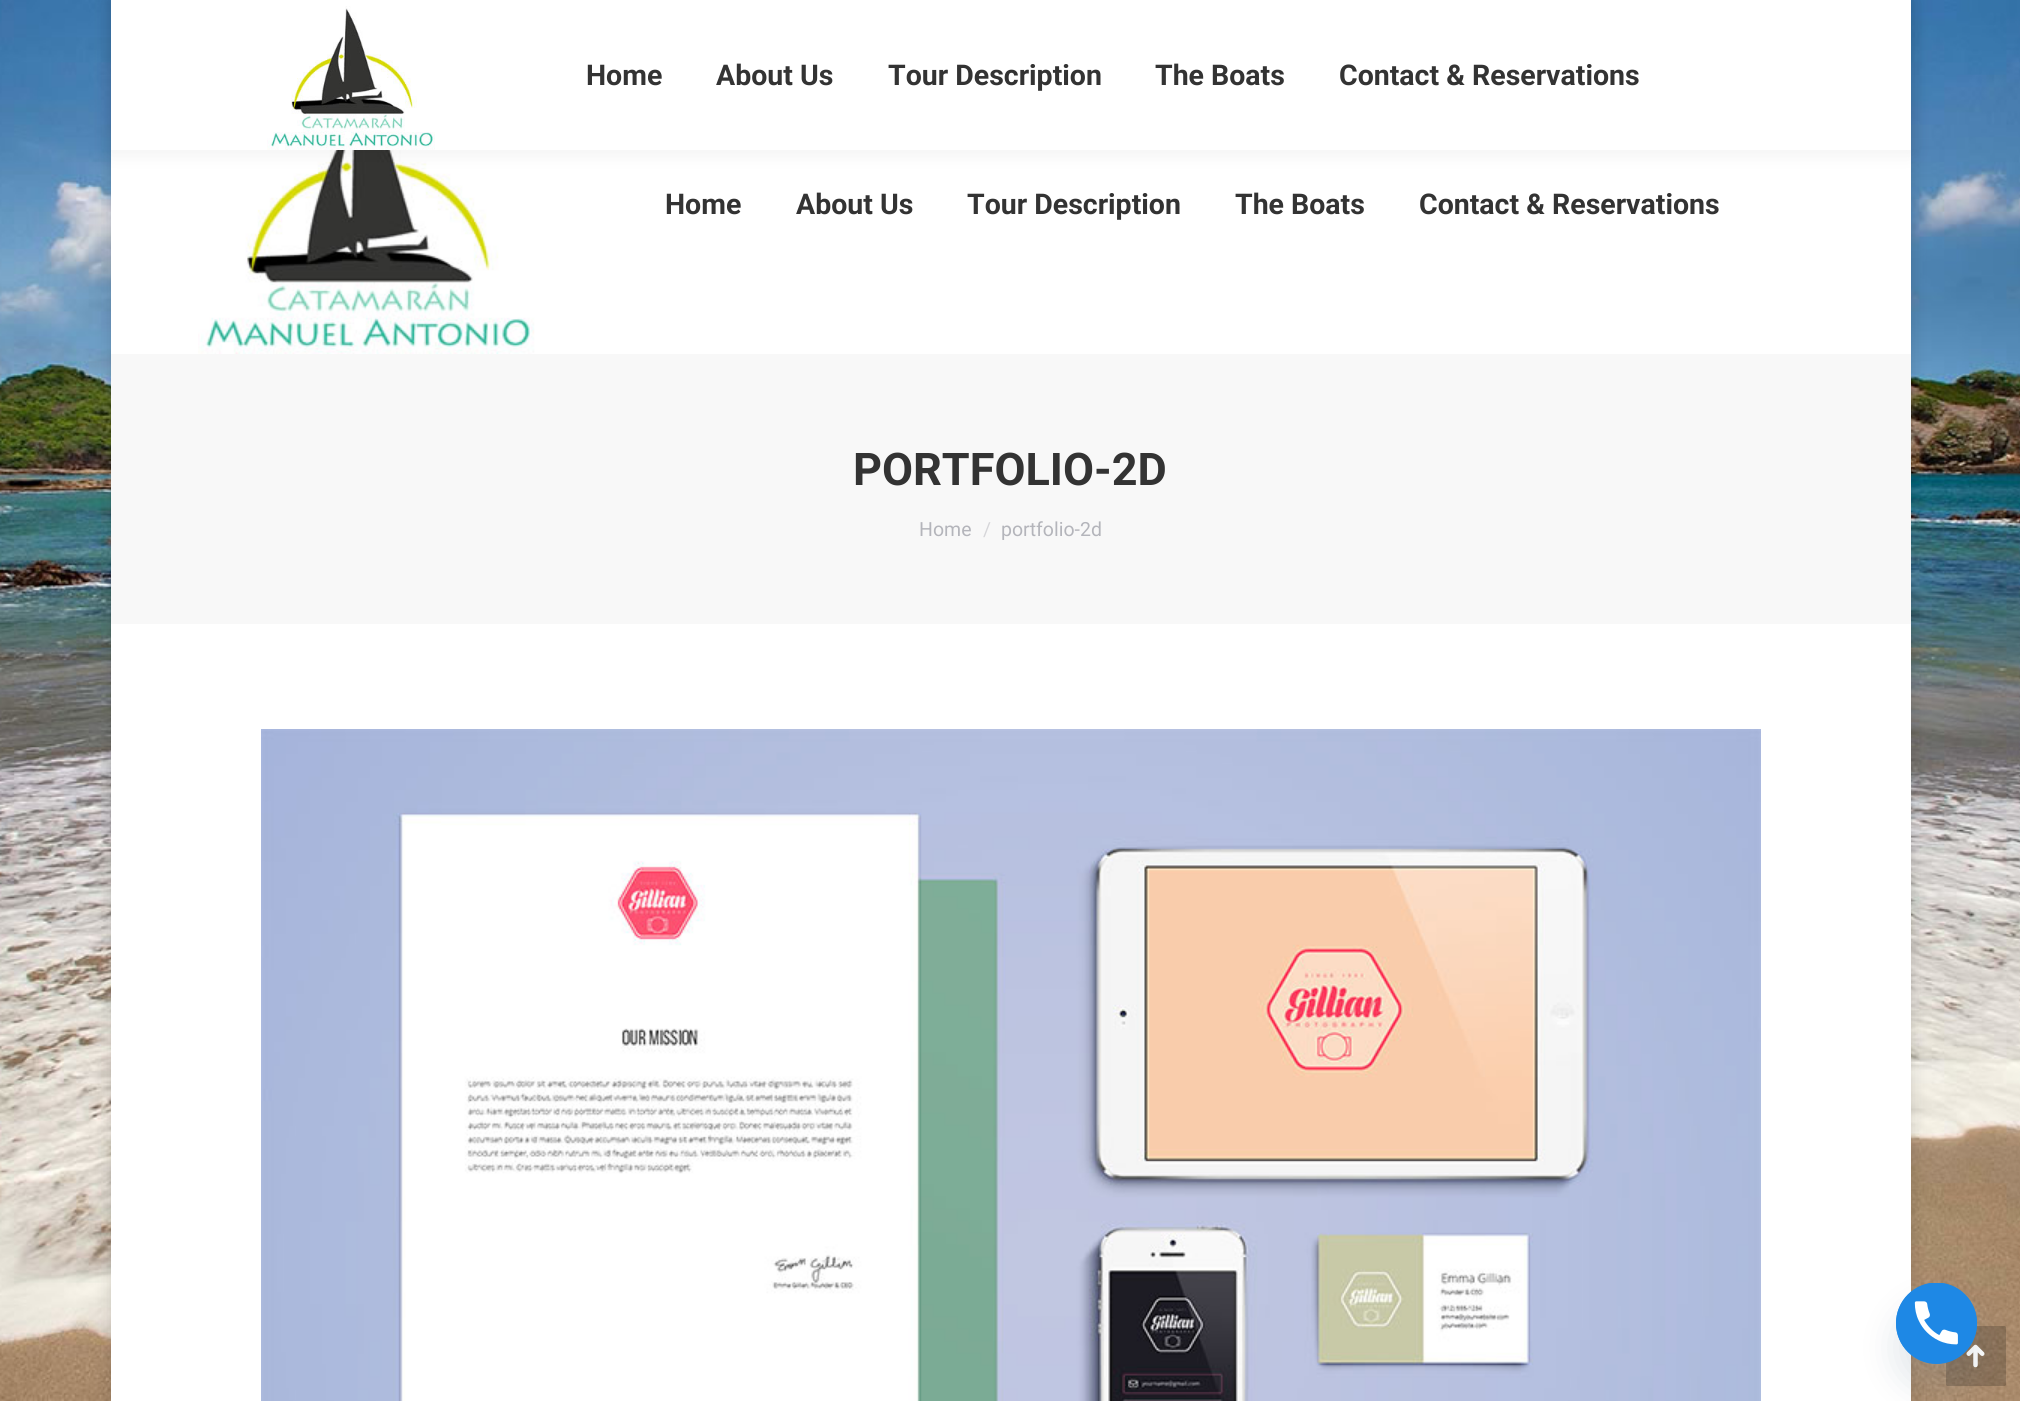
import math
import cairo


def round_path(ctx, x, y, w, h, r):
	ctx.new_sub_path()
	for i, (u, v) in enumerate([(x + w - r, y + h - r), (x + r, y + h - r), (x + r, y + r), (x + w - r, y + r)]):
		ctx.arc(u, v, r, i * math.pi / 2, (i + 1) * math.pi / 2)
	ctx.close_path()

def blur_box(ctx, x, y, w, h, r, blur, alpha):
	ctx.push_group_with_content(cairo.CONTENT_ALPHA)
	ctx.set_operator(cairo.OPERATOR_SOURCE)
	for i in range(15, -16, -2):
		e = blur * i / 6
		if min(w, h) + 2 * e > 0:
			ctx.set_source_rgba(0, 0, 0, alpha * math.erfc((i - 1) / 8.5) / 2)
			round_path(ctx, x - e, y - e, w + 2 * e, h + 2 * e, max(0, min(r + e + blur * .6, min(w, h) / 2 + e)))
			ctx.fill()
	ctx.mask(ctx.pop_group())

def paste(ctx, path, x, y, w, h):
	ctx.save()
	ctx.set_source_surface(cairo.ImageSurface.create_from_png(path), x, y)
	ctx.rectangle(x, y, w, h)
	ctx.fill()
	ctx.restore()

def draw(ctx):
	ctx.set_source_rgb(1, 1, 1)
	ctx.paint()
	paste(ctx, 'media/1.png', 0, 0, 2020, 1401)
	ctx.set_source_rgb(0, 0, 0)
	blur_box(ctx, 111, 0, 1800, 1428, 0, 9, 0.15)
	ctx.set_source_rgb(1, 1, 1)
	ctx.rectangle(111, 150, 1800, 1251)
	ctx.fill()
	paste(ctx, 'media/3.png', 198, 150, 345, 204)
	ctx.set_source_rgb(0, 0, 0)
	blur_box(ctx, 110, -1, 1803, 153, 0, 11, 0.07)
	ctx.set_source_rgb(1, 1, 1)
	ctx.rectangle(111, 0, 1800, 150)
	ctx.fill()
	paste(ctx, 'media/2.png', 267, 6, 168, 144)
	ctx.select_font_face('Roboto', cairo.FONT_SLANT_NORMAL, cairo.FONT_WEIGHT_BOLD)
	ctx.set_font_size(28.5)
	ctx.set_source_rgb(0.2, 0.2, 0.2)
	for x, y, s in [
		(586, 85, 'Home'),
		(716, 85, 'About Us'),
		(888, 85, 'Tour Description'),
		(1155, 85, 'The Boats'),
		(1339, 85, 'Contact & Reservations'),
		(665, 214, 'Home'),
		(796, 214, 'About Us'),
		(967, 214, 'Tour Description'),
		(1235, 214, 'The Boats'),
		(1419, 214, 'Contact & Reservations'),
	]:
		ctx.move_to(x, y)
		ctx.show_text(s)
	ctx.set_source_rgb(0.969, 0.969, 0.969)
	ctx.rectangle(111, 354, 1800, 270)
	ctx.fill()
	ctx.set_font_size(45)
	ctx.set_source_rgb(0.2, 0.2, 0.2)
	ctx.move_to(853, 485)
	ctx.show_text('PORTFOLIO-2D')
	ctx.select_font_face('Roboto')
	ctx.set_font_size(19.5)
	ctx.set_source_rgb(0.706, 0.71, 0.733)
	ctx.move_to(919, 536)
	ctx.show_text('Home')
	ctx.set_source_rgb(0.839, 0.839, 0.851)
	ctx.move_to(983, 536)
	ctx.show_text('/')
	ctx.set_source_rgb(0.706, 0.71, 0.733)
	ctx.move_to(1001, 536)
	ctx.show_text('portfolio-2d')
	paste(ctx, 'media/4.png', 261, 729, 1500, 672)
	ctx.set_source_rgba(0, 0, 0, 0.2)
	round_path(ctx, 1946, 1326, 60, 60, 1.5)
	ctx.fill()
	paste(ctx, 'media/5.png', 1966, 1344, 19, 24)
	ctx.set_source_rgb(0.286, 0.408, 0.494)
	blur_box(ctx, 1896, 1307, 81, 81, 40.5, 18, 0.16)
	ctx.set_source_rgb(0.118, 0.533, 0.898)
	ctx.arc(1936.5, 1323.5, 40.5, 0, 2 * math.pi)
	ctx.fill()
	paste(ctx, 'media/6.png', 1896, 1283, 81, 81)


surface = cairo.ImageSurface(cairo.FORMAT_RGB24, 2020, 1401)
ctx = cairo.Context(surface)
options = cairo.FontOptions()
options.set_hint_metrics(cairo.HINT_METRICS_OFF)
options.set_hint_style(cairo.HINT_STYLE_NONE)
ctx.set_font_options(options)
ctx.set_miter_limit(4)
draw(ctx)
surface.write_to_png('image.png')
